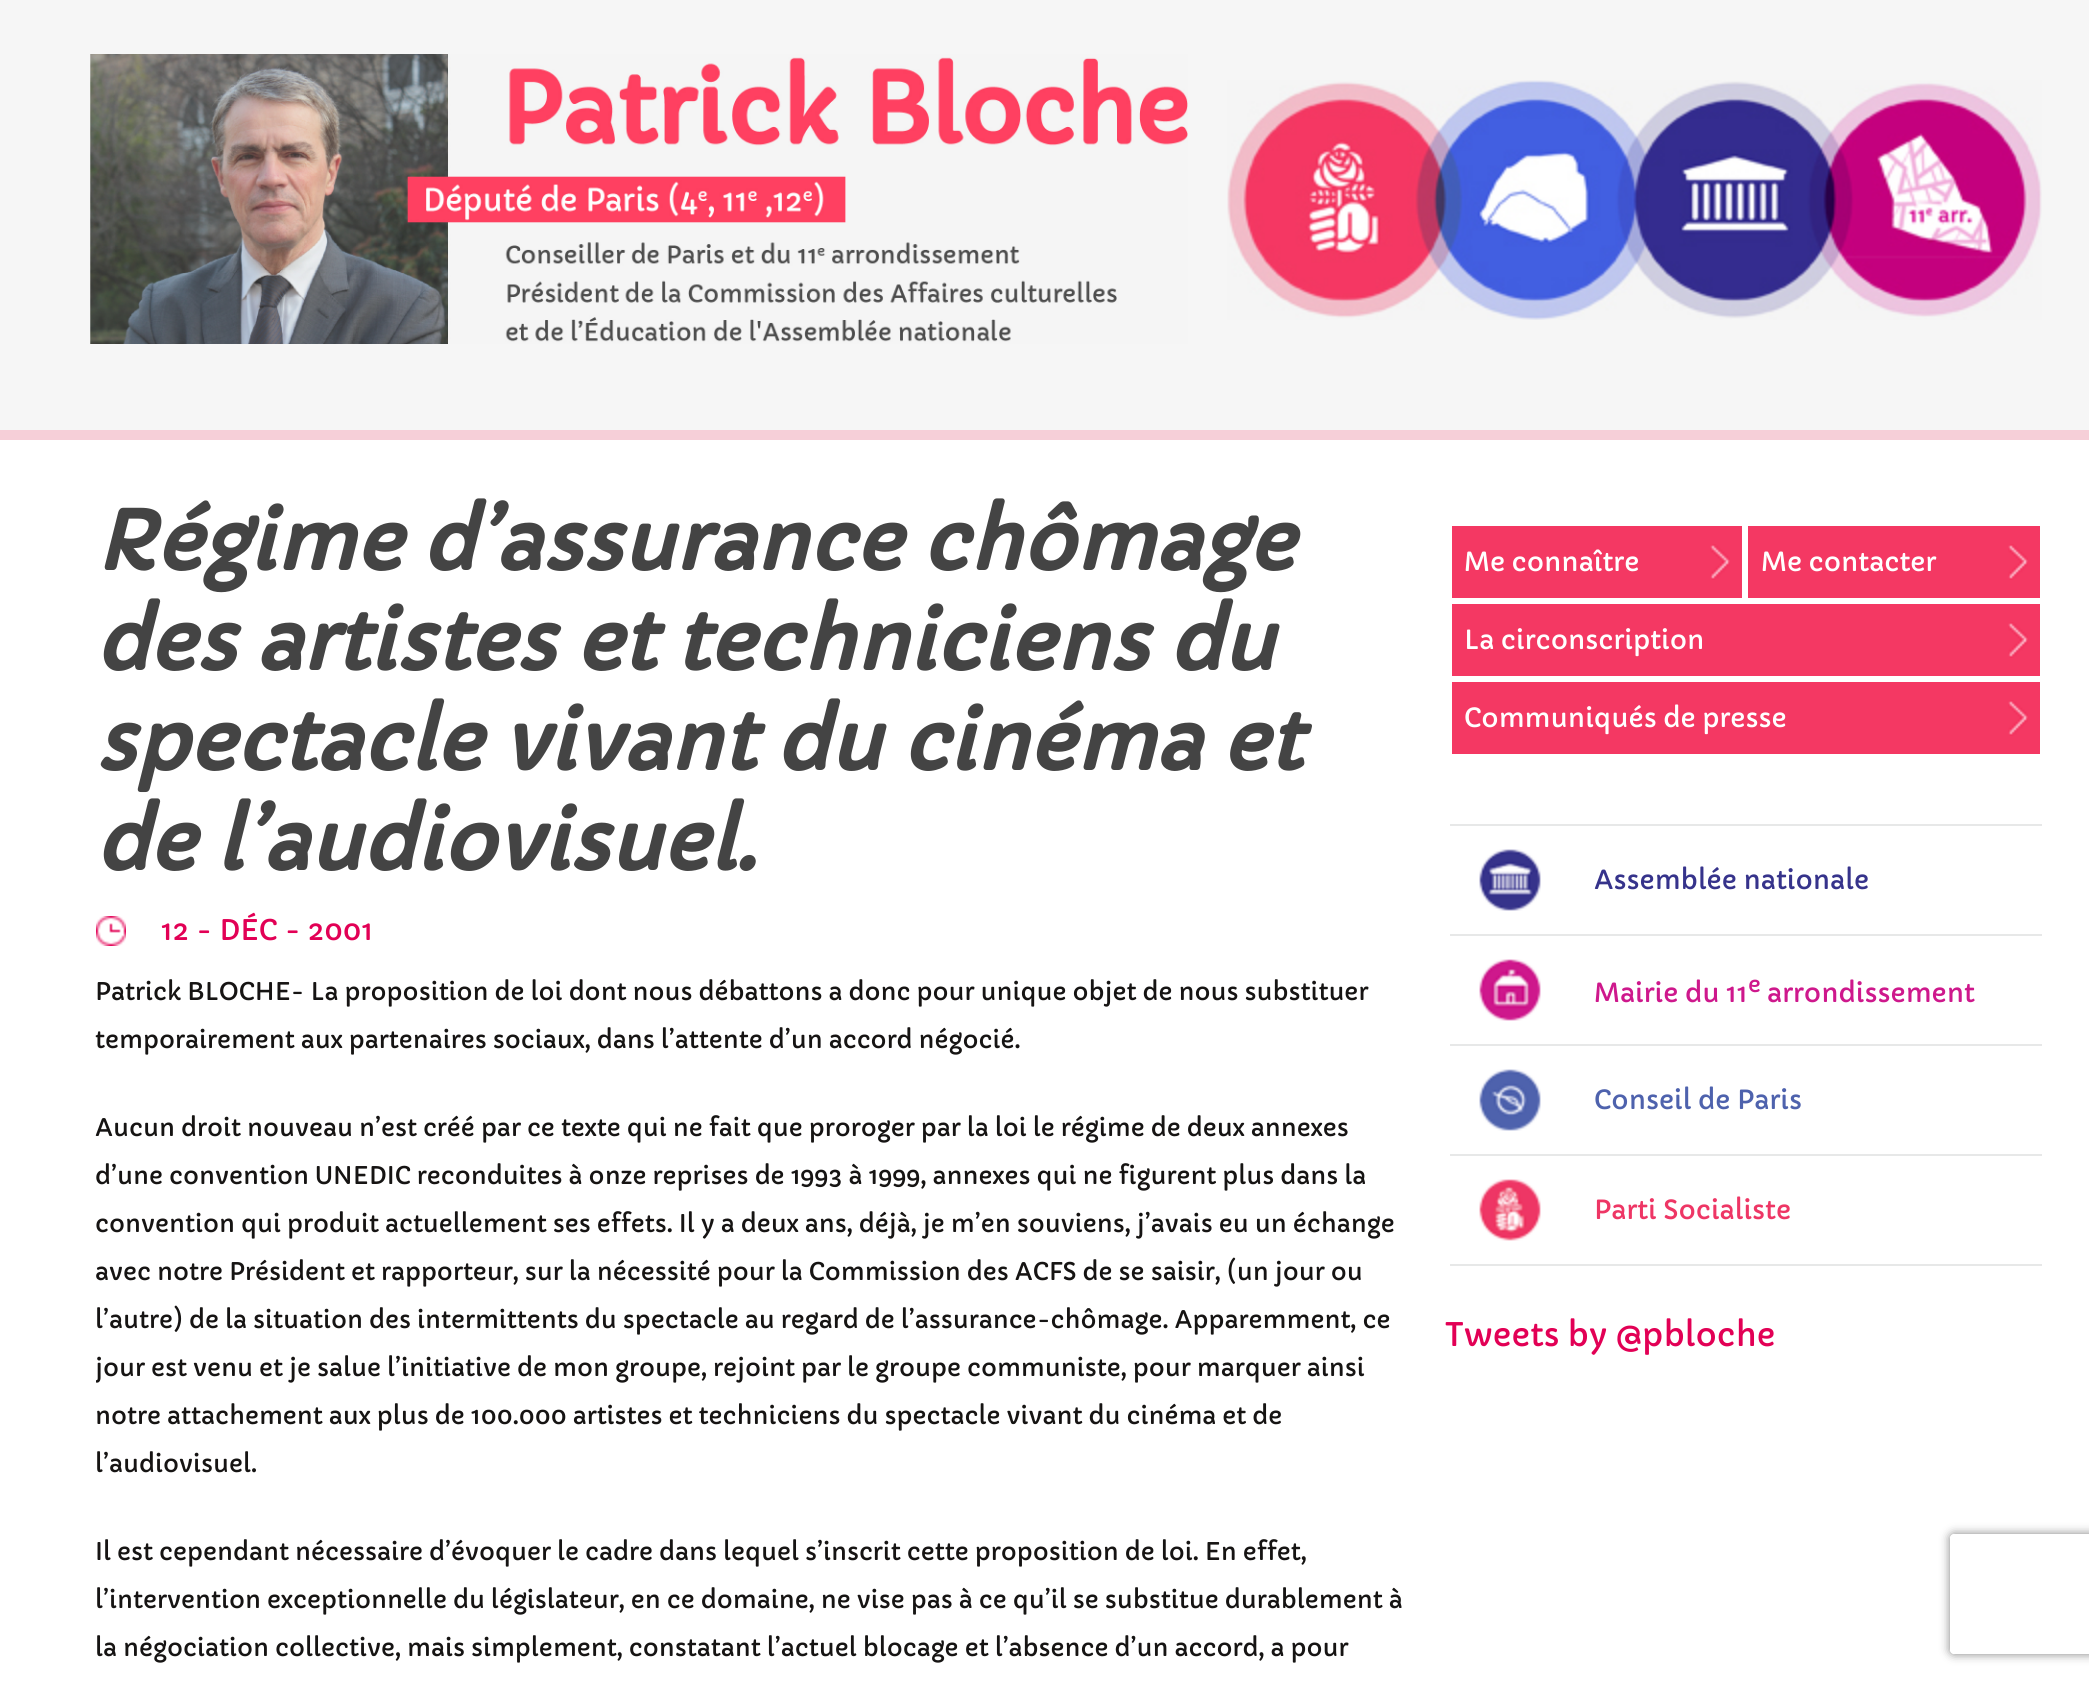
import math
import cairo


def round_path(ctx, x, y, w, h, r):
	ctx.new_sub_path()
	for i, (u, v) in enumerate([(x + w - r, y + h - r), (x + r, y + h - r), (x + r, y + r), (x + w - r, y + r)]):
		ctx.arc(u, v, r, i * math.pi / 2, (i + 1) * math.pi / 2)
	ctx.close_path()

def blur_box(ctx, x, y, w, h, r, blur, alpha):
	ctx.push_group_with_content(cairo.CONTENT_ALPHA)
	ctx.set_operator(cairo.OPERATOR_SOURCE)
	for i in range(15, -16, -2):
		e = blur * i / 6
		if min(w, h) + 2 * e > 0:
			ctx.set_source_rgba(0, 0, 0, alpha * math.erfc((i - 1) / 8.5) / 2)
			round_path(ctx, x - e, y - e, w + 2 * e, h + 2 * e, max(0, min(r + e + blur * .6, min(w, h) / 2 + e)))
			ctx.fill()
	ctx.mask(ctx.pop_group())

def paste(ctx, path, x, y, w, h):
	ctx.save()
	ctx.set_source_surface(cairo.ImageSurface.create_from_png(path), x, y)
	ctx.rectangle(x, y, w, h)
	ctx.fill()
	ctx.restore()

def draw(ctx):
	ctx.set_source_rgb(1, 1, 1)
	ctx.paint()
	ctx.set_source_rgb(0.961, 0.961, 0.961)
	ctx.rectangle(0, 0, 2089, 430)
	ctx.fill()
	ctx.set_source_rgb(0.961, 0.812, 0.847)
	ctx.rectangle(0, 430, 2089, 10)
	ctx.fill()
	paste(ctx, 'media/1.png', 90, 54, 1098, 290)
	paste(ctx, 'media/2.png', 1227, 80, 815, 240)
	ctx.select_font_face('Capriola', cairo.FONT_SLANT_ITALIC, cairo.FONT_WEIGHT_BOLD)
	ctx.set_font_size(80)
	ctx.set_source_rgb(0.267, 0.267, 0.267)
	for x, y, s in [
		(95, 570, 'Régime d’assurance chômage'),
		(95, 670, 'des artistes et techniciens du'),
		(95, 770, 'spectacle vivant du cinéma et'),
		(95, 870, 'de l’audiovisuel.'),
	]:
		ctx.move_to(x, y)
		ctx.show_text(s)
	paste(ctx, 'media/3.png', 96, 916, 30, 30)
	ctx.select_font_face('Capriola')
	ctx.set_font_size(28)
	ctx.set_source_rgb(0.886, 0, 0.333)
	ctx.move_to(161, 940)
	ctx.show_text('12 - DÉC - 2001')
	ctx.set_font_size(24)
	ctx.set_source_rgb(0.086, 0.082, 0.078)
	for x, y, s in [
		(95, 1000, 'Patrick BLOCHE- La proposition de loi dont nous débattons a donc pour unique objet de nous substituer'),
		(95, 1048, 'temporairement aux partenaires sociaux, dans l’attente d’un accord négocié.'),
		(95, 1136, 'Aucun droit nouveau n’est créé par ce texte qui ne fait que proroger par la loi le régime de deux annexes'),
		(95, 1184, 'd’une convention UNEDIC reconduites à onze reprises de 1993 à 1999, annexes qui ne figurent plus dans la'),
		(95, 1232, 'convention qui produit actuellement ses effets. Il y a deux ans, déjà, je m’en souviens, j’avais eu un échange'),
		(95, 1280, 'avec notre Président et rapporteur, sur la nécessité pour la Commission des ACFS de se saisir, (un jour ou'),
		(95, 1328, 'l’autre) de la situation des intermittents du spectacle au regard de l’assurance-chômage. Apparemment, ce'),
	]:
		ctx.move_to(x, y)
		ctx.show_text(s)
	ctx.save()
	ctx.rectangle(96, 480, 1310, 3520)
	ctx.clip()
	ctx.move_to(95, 1376)
	ctx.show_text('jour est venu et je salue l’initiative de mon groupe, rejoint par le groupe communiste, pour marquer ainsi')
	ctx.restore()
	for x, y, s in [
		(95, 1424, 'notre attachement aux plus de 100.000 artistes et techniciens du spectacle vivant du cinéma et de'),
		(95, 1472, 'l’audiovisuel.'),
		(95, 1560, 'Il est cependant nécessaire d’évoquer le cadre dans lequel s’inscrit cette proposition de loi. En effet,'),
		(95, 1608, 'l’intervention exceptionnelle du législateur, en ce domaine, ne vise pas à ce qu’il se substitue durablement à'),
		(95, 1656, 'la négociation collective, mais simplement, constatant l’actuel blocage et l’absence d’un accord, a pour'),
	]:
		ctx.move_to(x, y)
		ctx.show_text(s)
	ctx.set_source_rgb(0.957, 0.22, 0.388)
	ctx.rectangle(1452, 526, 290, 72)
	ctx.fill()
	ctx.set_font_size(26)
	ctx.set_source_rgb(1, 1, 1)
	ctx.move_to(1464, 571)
	ctx.show_text('Me connaître')
	paste(ctx, 'media/4.png', 1710, 544, 20, 36)
	ctx.set_source_rgb(0.957, 0.22, 0.388)
	ctx.rectangle(1748, 526, 292, 72)
	ctx.fill()
	ctx.set_source_rgb(1, 1, 1)
	ctx.move_to(1761, 571)
	ctx.show_text('Me contacter')
	paste(ctx, 'media/4.png', 2008, 544, 20, 36)
	ctx.set_source_rgb(0.957, 0.22, 0.388)
	ctx.rectangle(1452, 604, 588, 72)
	ctx.fill()
	ctx.set_source_rgb(1, 1, 1)
	ctx.move_to(1464, 649)
	ctx.show_text('La circonscription')
	paste(ctx, 'media/4.png', 2008, 622, 20, 36)
	ctx.set_source_rgb(0.957, 0.22, 0.388)
	ctx.rectangle(1452, 682, 588, 72)
	ctx.fill()
	ctx.set_source_rgb(1, 1, 1)
	ctx.move_to(1464, 727)
	ctx.show_text('Communiqués de presse')
	paste(ctx, 'media/4.png', 2008, 700, 20, 36)
	ctx.set_source_rgb(0.906, 0.91, 0.91)
	ctx.rectangle(1450, 824, 592, 2)
	ctx.fill()
	paste(ctx, 'media/5.png', 1479, 849, 62, 62)
	ctx.set_source_rgb(0.212, 0.2, 0.545)
	ctx.move_to(1594, 889)
	ctx.show_text('Assemblée nationale')
	ctx.set_source_rgb(0.906, 0.91, 0.91)
	ctx.rectangle(1450, 934, 592, 2)
	ctx.fill()
	paste(ctx, 'media/6.png', 1479, 959, 62, 62)
	ctx.set_source_rgb(0.808, 0.094, 0.549)
	ctx.move_to(1594, 1002)
	ctx.show_text('Mairie du 11')
	ctx.set_font_size(22)
	ctx.move_to(1748, 992)
	ctx.show_text('e')
	ctx.set_font_size(26)
	ctx.move_to(1767, 1002)
	ctx.show_text('arrondissement')
	ctx.set_source_rgb(0.906, 0.91, 0.91)
	ctx.rectangle(1450, 1044, 592, 2)
	ctx.fill()
	paste(ctx, 'media/7.png', 1479, 1069, 62, 62)
	ctx.set_source_rgb(0.306, 0.384, 0.678)
	ctx.move_to(1594, 1109)
	ctx.show_text('Conseil de Paris')
	ctx.set_source_rgb(0.906, 0.91, 0.91)
	ctx.rectangle(1450, 1154, 592, 2)
	ctx.fill()
	paste(ctx, 'media/8.png', 1479, 1179, 62, 62)
	ctx.set_source_rgb(0.933, 0.212, 0.396)
	ctx.move_to(1594, 1219)
	ctx.show_text('Parti Socialiste')
	ctx.set_source_rgb(0.906, 0.91, 0.91)
	ctx.rectangle(1450, 1264, 592, 2)
	ctx.fill()
	ctx.set_font_size(32)
	ctx.set_source_rgb(0.886, 0, 0.333)
	ctx.move_to(1445, 1346)
	ctx.show_text('Tweets by @pbloche')
	ctx.save()
	ctx.set_fill_rule(cairo.FILL_RULE_EVEN_ODD)
	ctx.new_path()
	ctx.move_to(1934, 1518)
	ctx.line_to(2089, 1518)
	ctx.line_to(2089, 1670)
	ctx.line_to(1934, 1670)
	ctx.close_path()
	ctx.move_to(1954, 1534)
	ctx.line_to(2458, 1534)
	ctx.curve_to(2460, 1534, 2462, 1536, 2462, 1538)
	ctx.line_to(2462, 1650)
	ctx.curve_to(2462, 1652, 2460, 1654, 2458, 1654)
	ctx.line_to(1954, 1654)
	ctx.curve_to(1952, 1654, 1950, 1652, 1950, 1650)
	ctx.line_to(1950, 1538)
	ctx.curve_to(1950, 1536, 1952, 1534, 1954, 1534)
	ctx.close_path()
	ctx.clip()
	ctx.set_source_rgb(0.502, 0.502, 0.502)
	blur_box(ctx, 1950, 1534, 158, 120, 4, 5, 1)
	ctx.restore()


surface = cairo.ImageSurface(cairo.FORMAT_RGB24, 2089, 1681)
ctx = cairo.Context(surface)
options = cairo.FontOptions()
options.set_hint_metrics(cairo.HINT_METRICS_OFF)
options.set_hint_style(cairo.HINT_STYLE_NONE)
ctx.set_font_options(options)
ctx.set_miter_limit(4)
draw(ctx)
surface.write_to_png('image.png')
